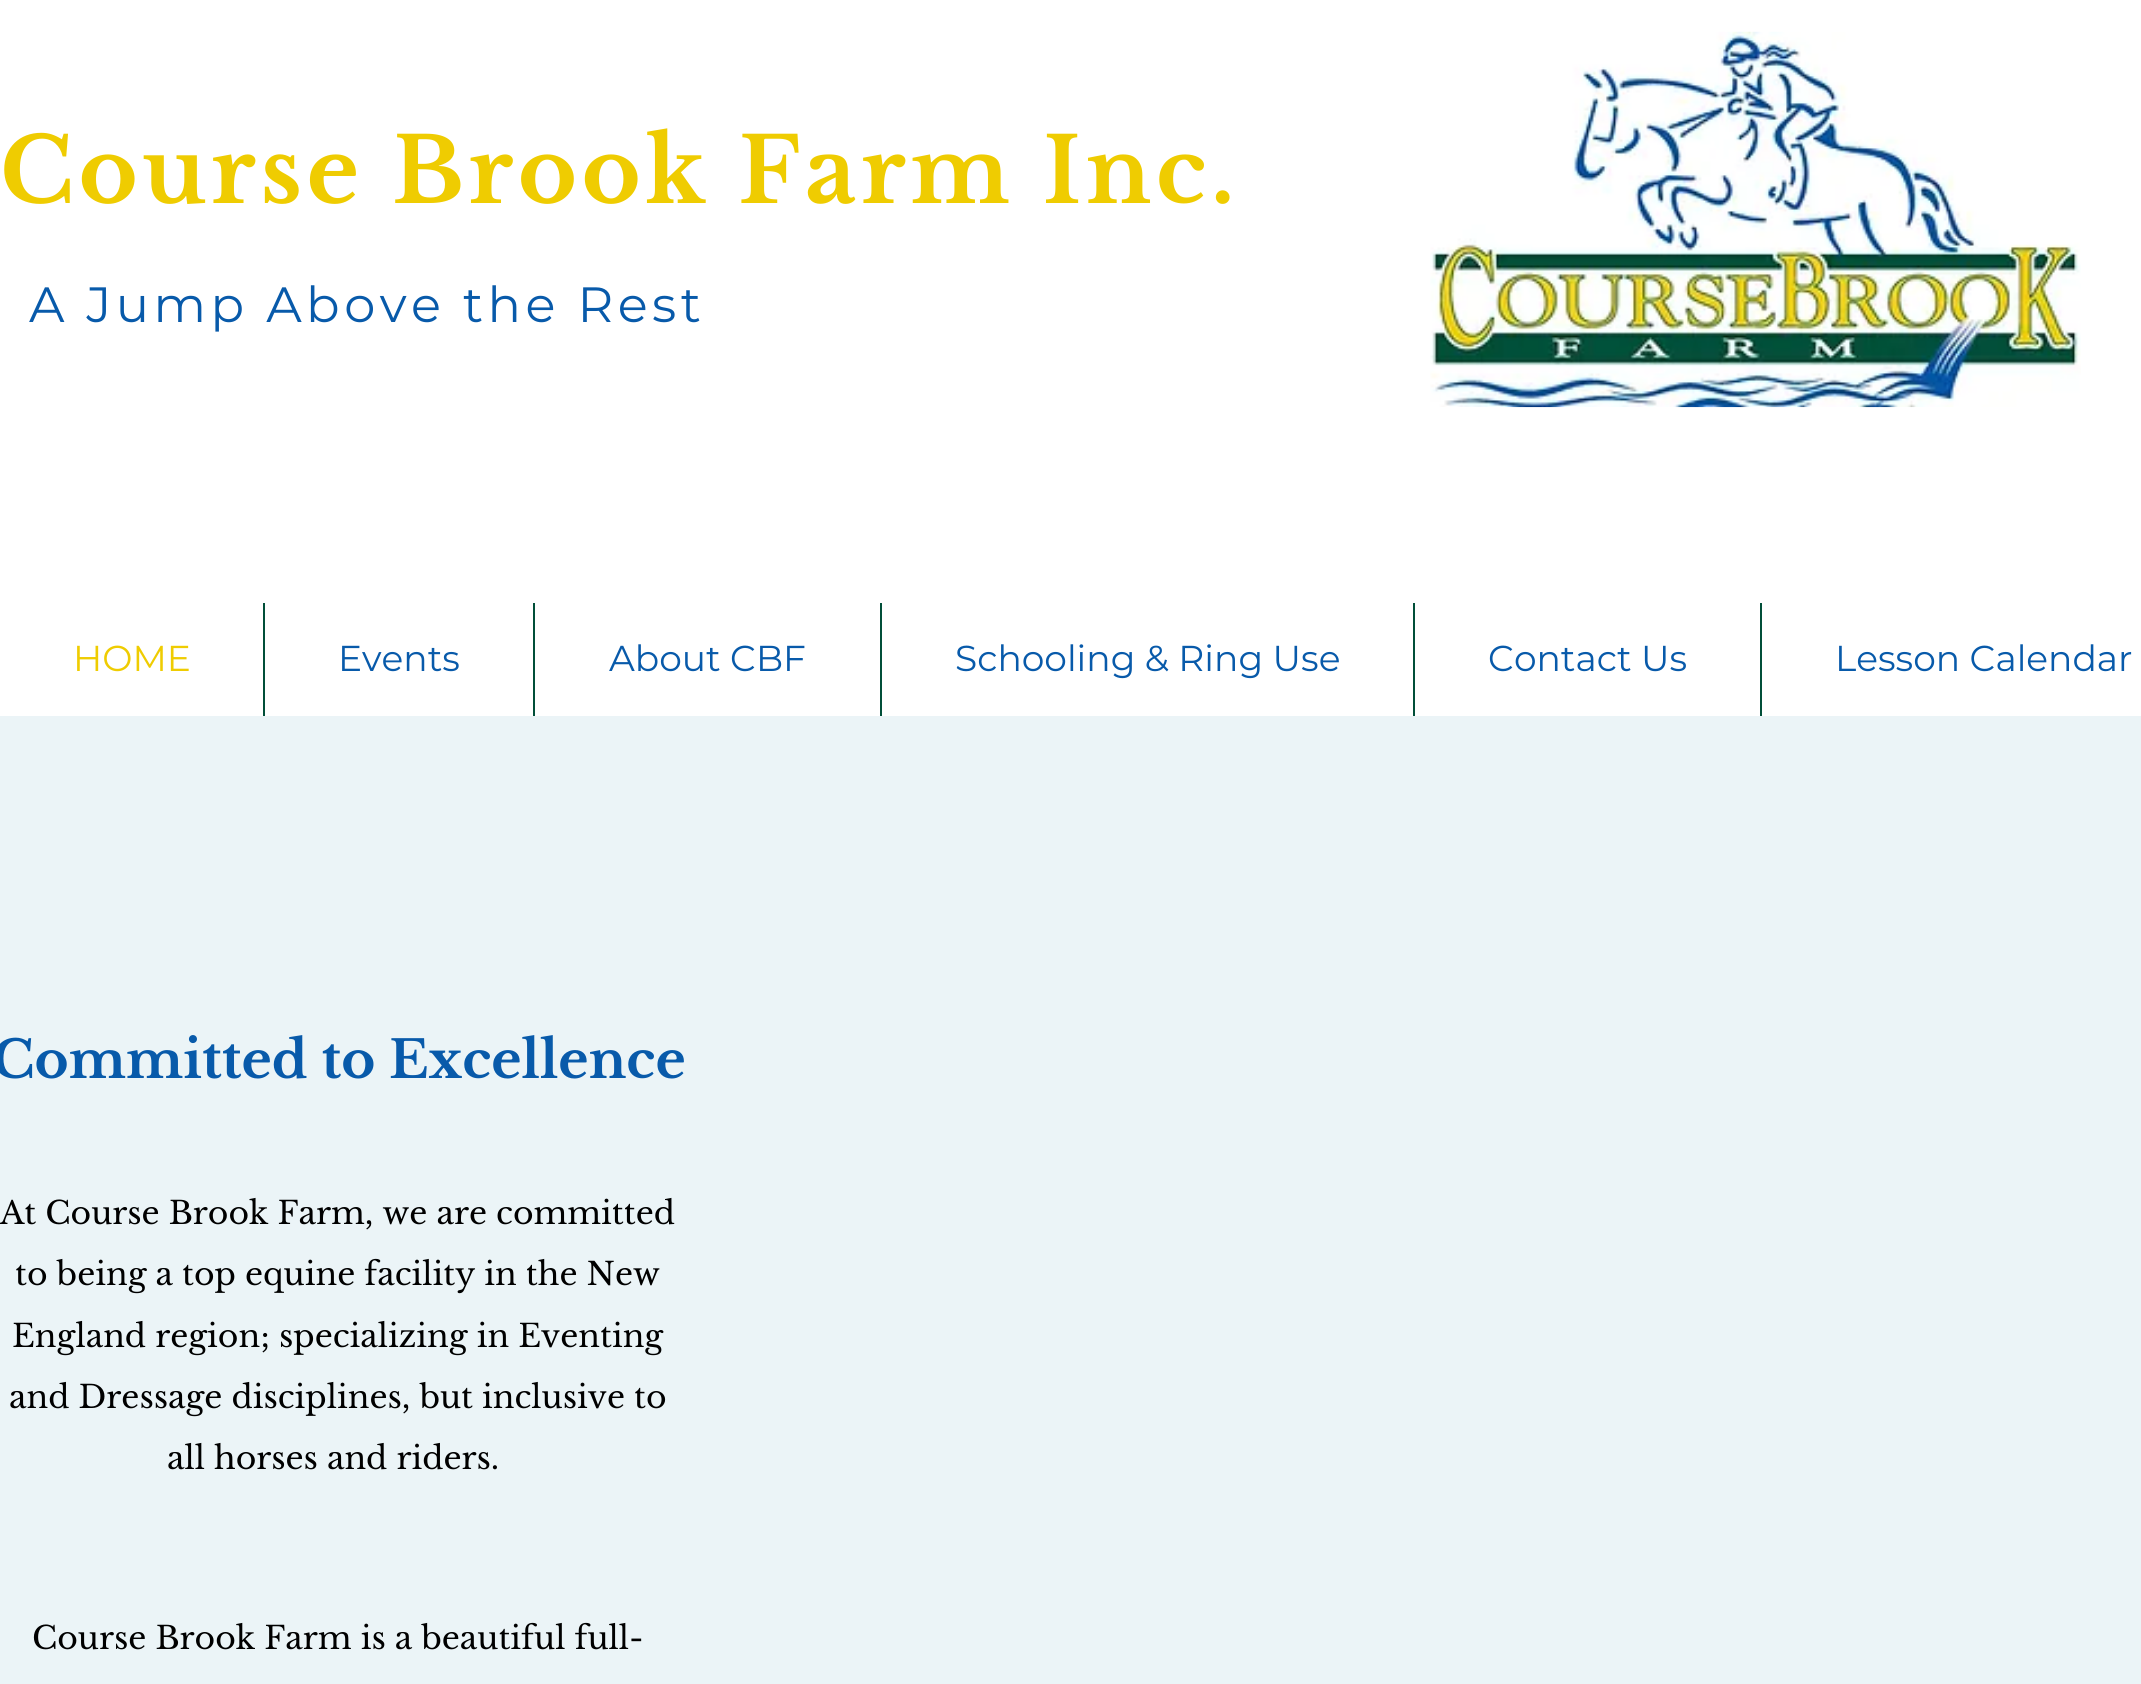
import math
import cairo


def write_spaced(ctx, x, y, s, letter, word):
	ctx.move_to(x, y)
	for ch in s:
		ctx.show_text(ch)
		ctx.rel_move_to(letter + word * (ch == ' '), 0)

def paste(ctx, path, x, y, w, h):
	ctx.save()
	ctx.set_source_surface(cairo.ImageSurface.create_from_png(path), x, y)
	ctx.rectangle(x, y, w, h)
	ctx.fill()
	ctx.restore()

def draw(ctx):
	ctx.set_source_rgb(1, 1, 1)
	ctx.paint()
	ctx.select_font_face('Libre Baskerville', cairo.FONT_SLANT_NORMAL, cairo.FONT_WEIGHT_BOLD)
	ctx.set_font_size(90)
	ctx.set_source_rgb(0.937, 0.8, 0.004)
	write_spaced(ctx, 0, 203, 'Course Brook Farm Inc.', 4.5, 0)
	paste(ctx, 'media/1.png', 1430, 31, 651, 377)
	ctx.select_font_face('Montserrat')
	ctx.set_font_size(49.5)
	ctx.set_source_rgb(0.035, 0.353, 0.667)
	write_spaced(ctx, 29, 322, 'A Jump Above the Rest', 4.5, 0)
	ctx.set_font_size(36)
	ctx.set_source_rgb(0.937, 0.8, 0.004)
	ctx.move_to(73, 671)
	ctx.show_text('HOME')
	ctx.set_source_rgb(0.004, 0.31, 0.224)
	ctx.rectangle(263, 603, 2, 113)
	ctx.fill()
	ctx.set_source_rgb(0.035, 0.353, 0.667)
	ctx.move_to(338, 671)
	ctx.show_text('Events')
	ctx.set_source_rgb(0.004, 0.31, 0.224)
	ctx.rectangle(533, 603, 2, 113)
	ctx.fill()
	ctx.set_source_rgb(0.035, 0.353, 0.667)
	ctx.move_to(609, 671)
	ctx.show_text('About CBF')
	ctx.set_source_rgb(0.004, 0.31, 0.224)
	ctx.rectangle(880, 603, 2, 113)
	ctx.fill()
	ctx.set_source_rgb(0.035, 0.353, 0.667)
	ctx.move_to(955, 671)
	ctx.show_text('Schooling & Ring Use')
	ctx.set_source_rgb(0.004, 0.31, 0.224)
	ctx.rectangle(1413, 603, 2, 113)
	ctx.fill()
	ctx.set_source_rgb(0.035, 0.353, 0.667)
	ctx.move_to(1488, 671)
	ctx.show_text('Contact Us')
	ctx.set_source_rgb(0.004, 0.31, 0.224)
	ctx.rectangle(1760, 603, 2, 113)
	ctx.fill()
	ctx.set_source_rgb(0.035, 0.353, 0.667)
	ctx.move_to(1835, 671)
	ctx.show_text('Lesson Calendar')
	ctx.set_source_rgb(0.918, 0.957, 0.965)
	ctx.rectangle(0, 716, 2141, 968)
	ctx.fill()
	ctx.select_font_face('Libre Baskerville', cairo.FONT_SLANT_NORMAL, cairo.FONT_WEIGHT_BOLD)
	ctx.set_font_size(51.75)
	ctx.set_source_rgb(0.035, 0.353, 0.667)
	ctx.move_to(-8, 1078)
	ctx.show_text('Committed to Excellence')
	ctx.select_font_face('Libre Baskerville')
	ctx.set_font_size(31.5)
	ctx.set_source_rgb(0, 0, 0)
	for x, y, s in [
		(0, 1224, 'At Course Brook Farm, we are committed'),
		(15, 1285, 'to being a top equine facility in the New'),
		(12, 1347, 'England region; specializing in Eventing'),
		(9, 1408, 'and Dressage disciplines, but inclusive to'),
		(167, 1469, 'all horses and riders.'),
		(32, 1649, 'Course Brook Farm is a beautiful full-'),
	]:
		ctx.move_to(x, y)
		ctx.show_text(s)


surface = cairo.ImageSurface(cairo.FORMAT_RGB24, 2141, 1684)
ctx = cairo.Context(surface)
options = cairo.FontOptions()
options.set_hint_metrics(cairo.HINT_METRICS_OFF)
options.set_hint_style(cairo.HINT_STYLE_NONE)
ctx.set_font_options(options)
ctx.set_miter_limit(4)
draw(ctx)
surface.write_to_png('image.png')
